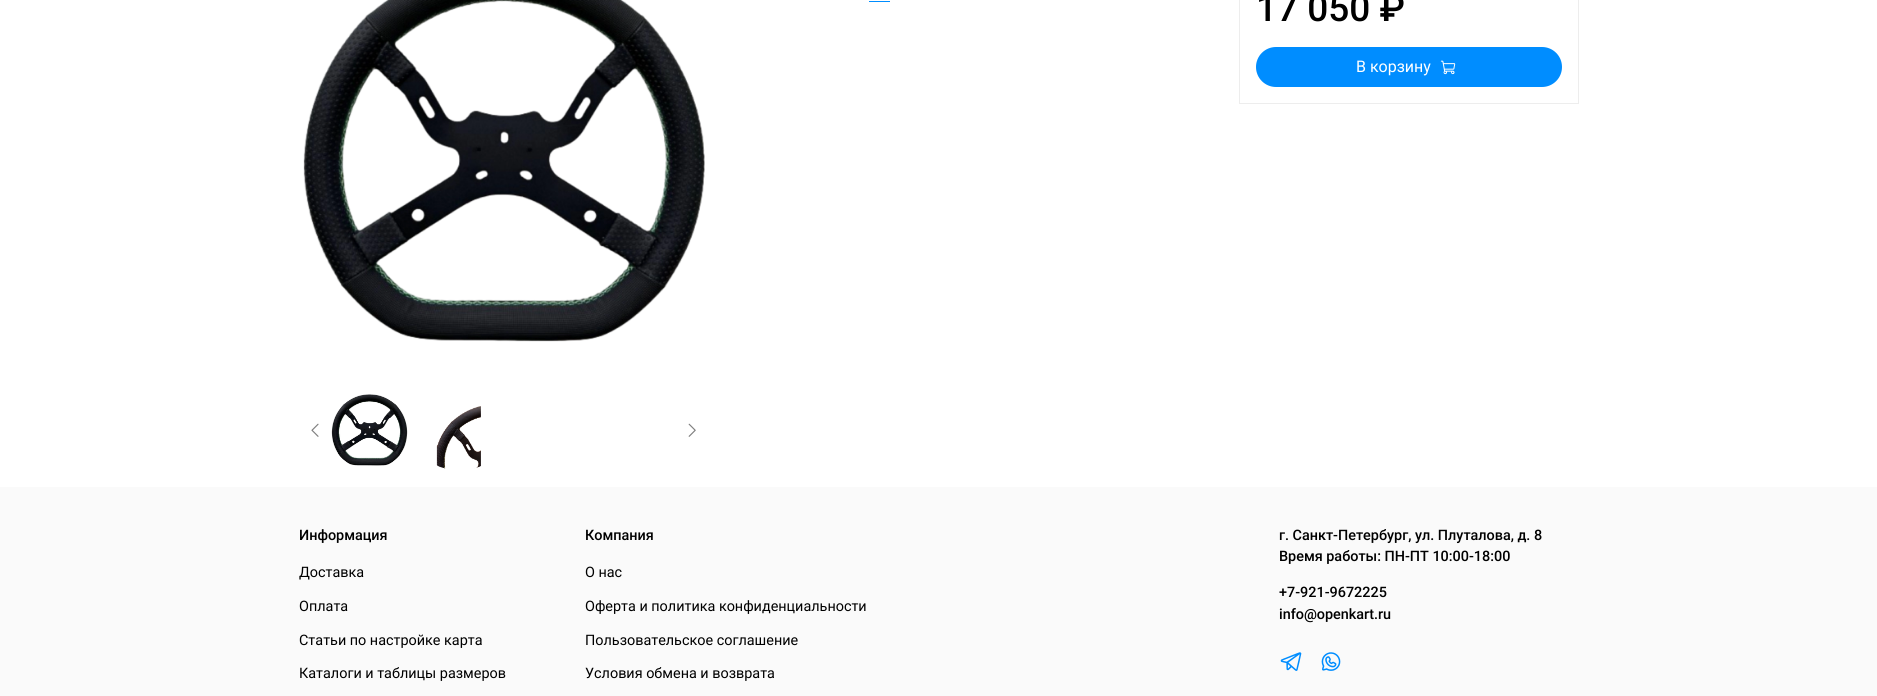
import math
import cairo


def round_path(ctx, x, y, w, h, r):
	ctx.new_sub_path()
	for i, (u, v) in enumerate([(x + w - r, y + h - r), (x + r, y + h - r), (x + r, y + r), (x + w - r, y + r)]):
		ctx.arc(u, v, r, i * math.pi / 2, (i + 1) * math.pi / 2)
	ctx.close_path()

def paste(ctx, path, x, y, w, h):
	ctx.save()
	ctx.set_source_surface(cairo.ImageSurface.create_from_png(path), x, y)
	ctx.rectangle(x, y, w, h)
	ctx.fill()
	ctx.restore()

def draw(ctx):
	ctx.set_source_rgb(1, 1, 1)
	ctx.paint()
	paste(ctx, 'media/1.png', 303, 0, 402, 342)
	paste(ctx, 'media/2.png', 331, 394, 77, 72)
	paste(ctx, 'media/3.png', 436, 406, 45, 63)
	paste(ctx, 'media/4.png', 311, 423, 8, 14)
	paste(ctx, 'media/5.png', 688, 423, 8, 14)
	ctx.set_source_rgb(0, 0.553, 1)
	ctx.rectangle(869, 1, 21, 1)
	ctx.fill()
	ctx.rectangle(1239.5, -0.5, 339, 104)
	ctx.set_source_rgb(0.929, 0.929, 0.929)
	ctx.set_line_width(1)
	ctx.stroke()
	ctx.select_font_face('Roboto Medium')
	ctx.set_font_size(37)
	ctx.set_source_rgb(0, 0, 0)
	ctx.move_to(1256, 21)
	ctx.show_text('17 050 ₽')
	ctx.set_source_rgb(0, 0.553, 1)
	round_path(ctx, 1256, 47, 306, 40, 20)
	ctx.fill()
	ctx.select_font_face('Roboto')
	ctx.set_font_size(16)
	ctx.set_source_rgb(1, 1, 1)
	ctx.move_to(1356, 72)
	ctx.show_text('В корзину')
	paste(ctx, 'media/6.png', 1440, 60, 16, 15)
	ctx.set_source_rgb(0.98, 0.98, 0.98)
	ctx.rectangle(0, 487, 1877, 209)
	ctx.fill()
	ctx.select_font_face('Roboto Medium')
	ctx.set_font_size(14.4)
	ctx.set_source_rgb(0, 0, 0)
	ctx.move_to(299, 540)
	ctx.show_text('Информация')
	ctx.select_font_face('Roboto')
	for x, y, s in [
		(299, 577, 'Доставка'),
		(299, 611, 'Оплата'),
		(299, 645, 'Статьи по настройке карта'),
		(299, 678, 'Каталоги и таблицы размеров'),
	]:
		ctx.move_to(x, y)
		ctx.show_text(s)
	ctx.select_font_face('Roboto Medium')
	ctx.move_to(585, 540)
	ctx.show_text('Компания')
	ctx.select_font_face('Roboto')
	for x, y, s in [
		(585, 577, 'О нас'),
		(585, 611, 'Оферта и политика конфиденциальности'),
		(585, 645, 'Пользовательское соглашение'),
		(585, 678, 'Условия обмена и возврата'),
	]:
		ctx.move_to(x, y)
		ctx.show_text(s)
	ctx.select_font_face('Roboto Medium')
	for x, y, s in [
		(1279, 540, 'г. Санкт-Петербург, ул. Плуталова, д. 8'),
		(1279, 561, 'Время работы: ПН-ПТ 10:00-18:00'),
		(1279, 597, '+7-921-9672225'),
		(1279, 619, 'info@openkart.ru'),
	]:
		ctx.move_to(x, y)
		ctx.show_text(s)
	paste(ctx, 'media/7.png', 1280, 652, 22, 19)
	paste(ctx, 'media/8.png', 1321, 652, 20, 19)


surface = cairo.ImageSurface(cairo.FORMAT_RGB24, 1877, 696)
ctx = cairo.Context(surface)
options = cairo.FontOptions()
options.set_hint_metrics(cairo.HINT_METRICS_OFF)
options.set_hint_style(cairo.HINT_STYLE_NONE)
ctx.set_font_options(options)
ctx.set_miter_limit(4)
draw(ctx)
surface.write_to_png('image.png')
